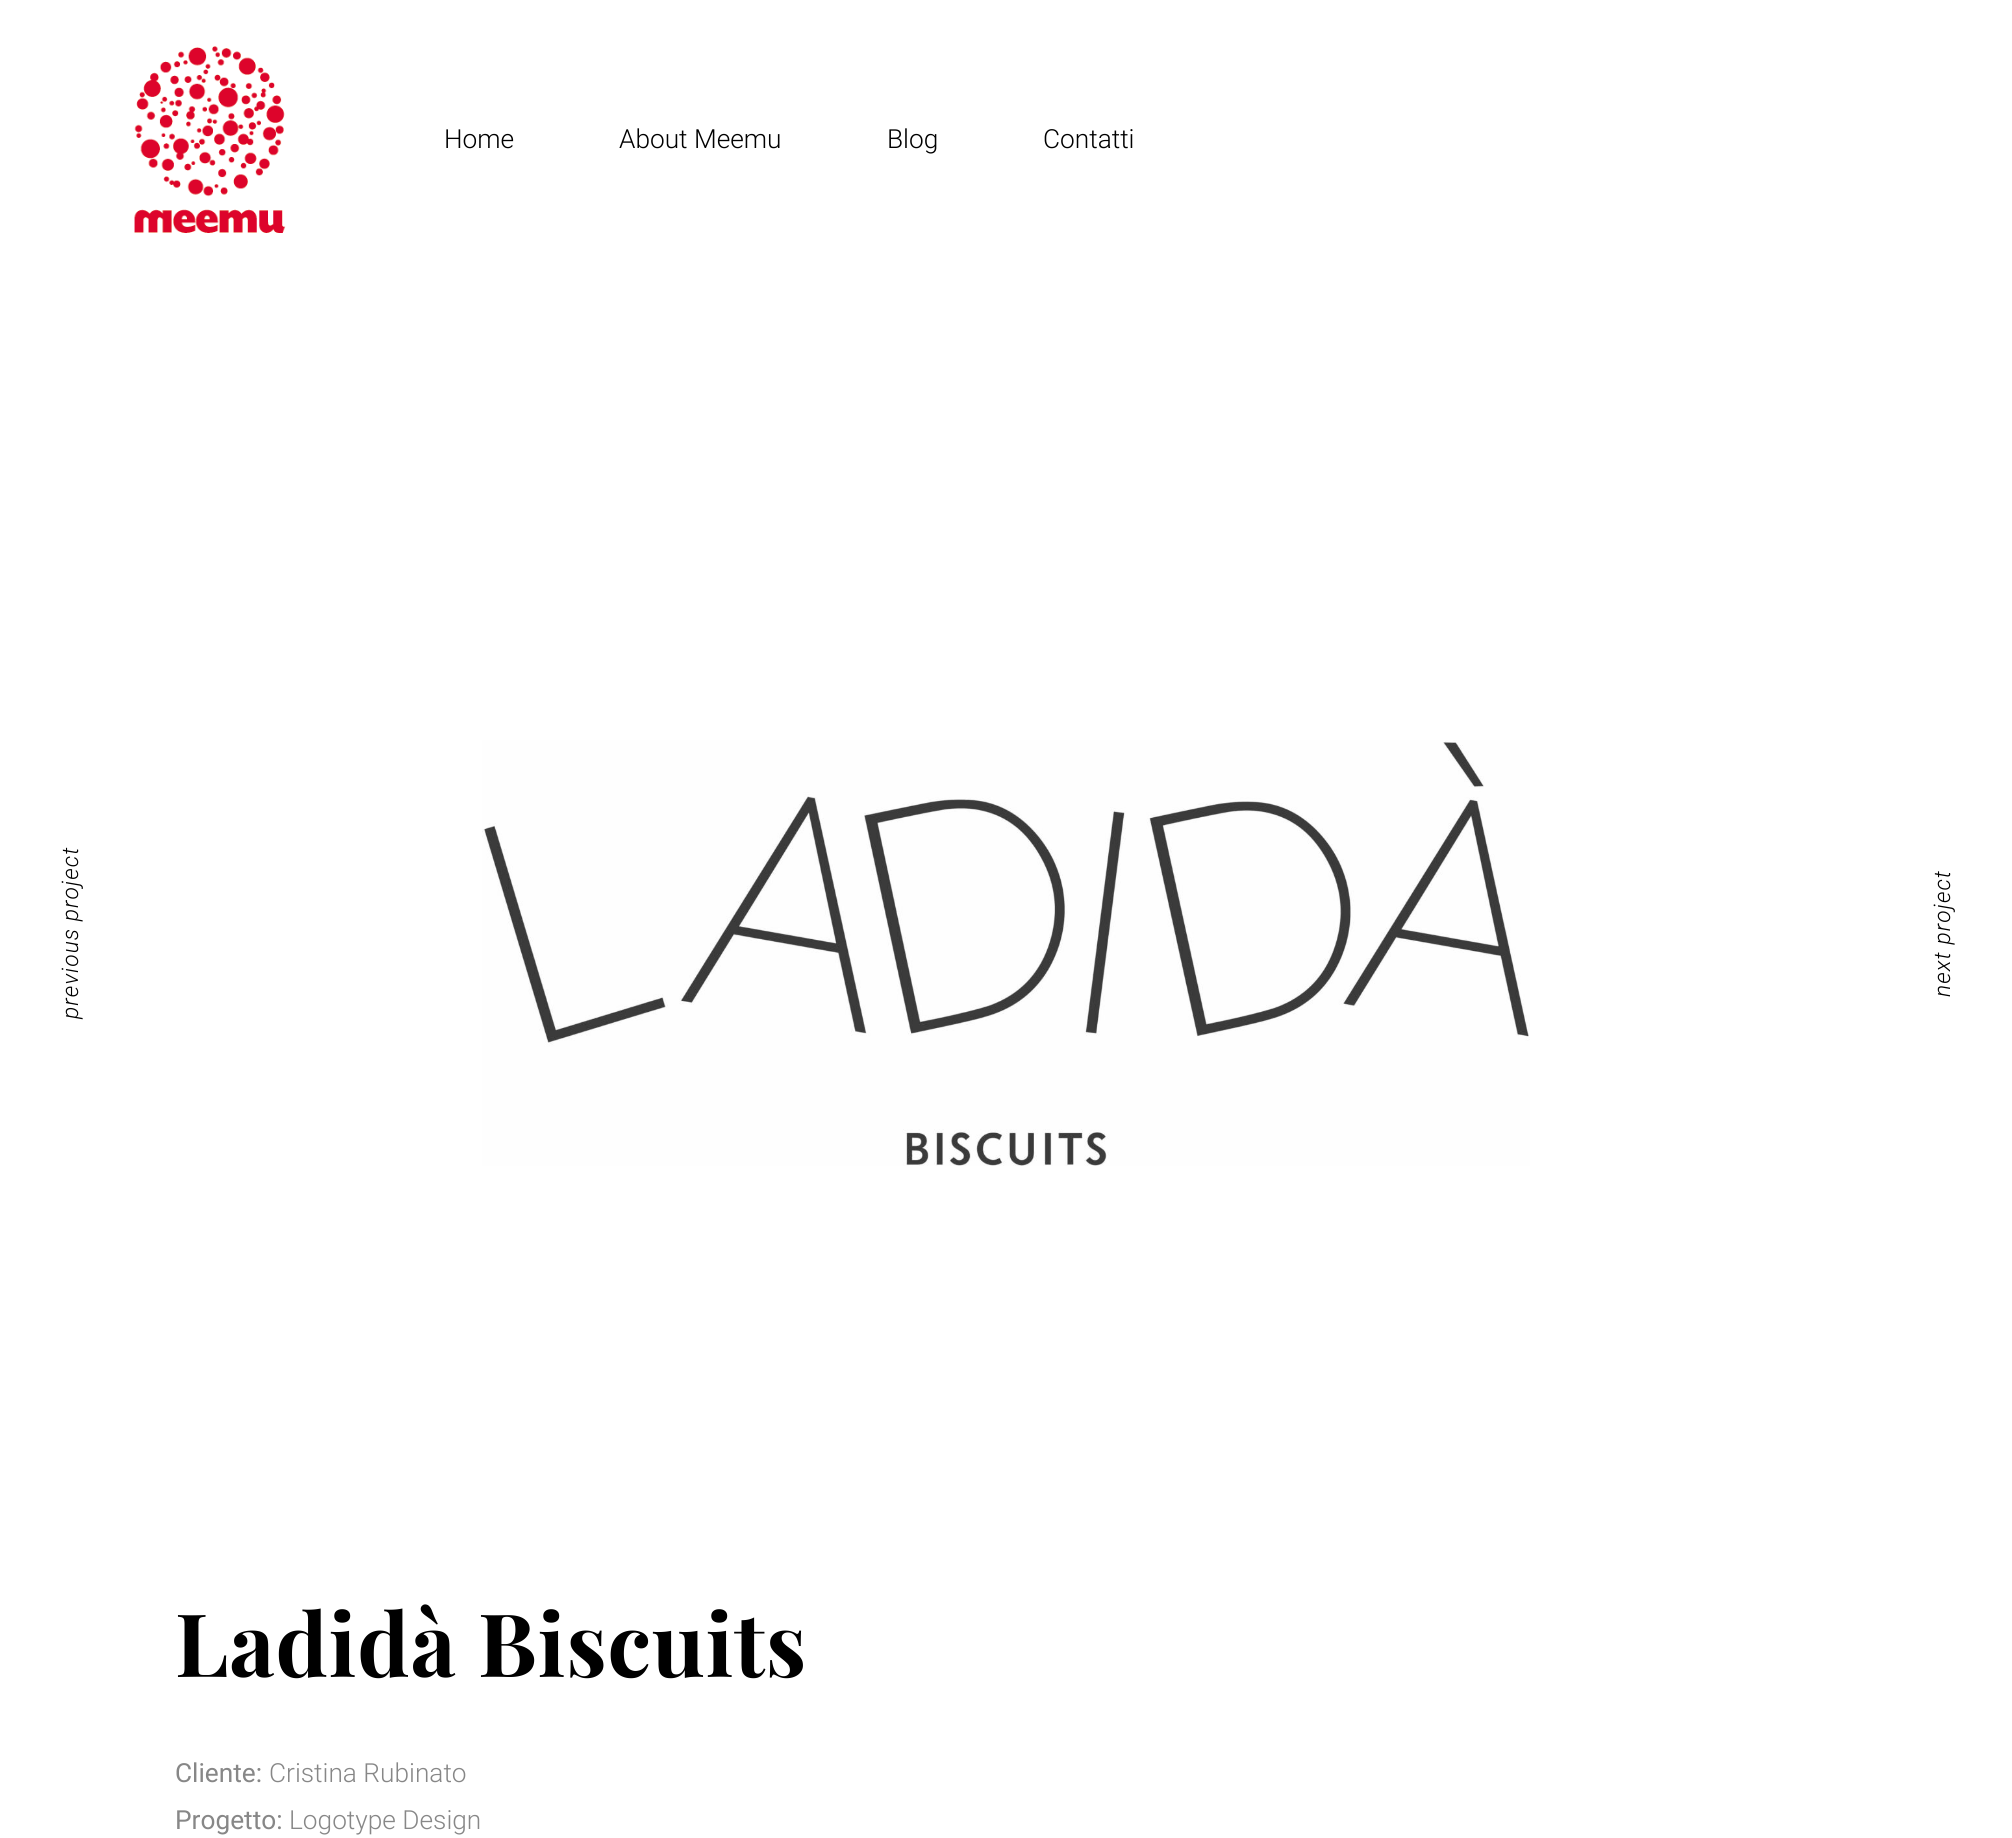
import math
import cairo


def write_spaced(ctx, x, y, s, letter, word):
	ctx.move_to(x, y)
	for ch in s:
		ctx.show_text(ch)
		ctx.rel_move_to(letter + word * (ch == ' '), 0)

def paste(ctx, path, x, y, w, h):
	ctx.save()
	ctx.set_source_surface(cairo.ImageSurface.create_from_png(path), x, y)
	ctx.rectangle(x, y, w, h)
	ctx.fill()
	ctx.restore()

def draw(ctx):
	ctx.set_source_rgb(1, 1, 1)
	ctx.paint()
	paste(ctx, 'media/1.png', 134, 46, 152, 187)
	ctx.select_font_face('Roboto Light')
	ctx.set_font_size(26.25)
	ctx.set_source_rgb(0, 0, 0)
	for x, y, s in [
		(444, 148, 'Home'),
		(619, 148, 'About Meemu'),
		(887, 148, 'Blog'),
		(1043, 148, 'Contatti'),
	]:
		ctx.move_to(x, y)
		ctx.show_text(s)
	paste(ctx, 'media/2.png', 482, 740, 1048, 426)
	ctx.select_font_face('Roboto Light', cairo.FONT_SLANT_ITALIC)
	ctx.set_font_size(22.75)
	ctx.save()
	ctx.translate(78, 1019)
	ctx.rotate(-90 * math.pi / 180)
	write_spaced(ctx, 0, 0, 'previous project', 1.1, 0)
	ctx.restore()
	ctx.save()
	ctx.translate(1950, 997)
	ctx.rotate(-90 * math.pi / 180)
	write_spaced(ctx, 0, 0, 'next project', 1.1, 0)
	ctx.restore()
	ctx.select_font_face('Playfair Display', cairo.FONT_SLANT_NORMAL, cairo.FONT_WEIGHT_BOLD)
	ctx.set_font_size(87.5)
	write_spaced(ctx, 175, 1677, 'Ladidà Biscuits', 0.9, 0)
	ctx.select_font_face('Roboto')
	ctx.set_font_size(26.25)
	ctx.set_source_rgb(0.529, 0.529, 0.529)
	ctx.move_to(175, 1782)
	ctx.show_text('Cliente:')
	ctx.select_font_face('Roboto Light')
	ctx.move_to(269, 1782)
	ctx.show_text('Cristina Rubinato')
	ctx.select_font_face('Roboto')
	ctx.move_to(175, 1829)
	ctx.show_text('Progetto:')
	ctx.select_font_face('Roboto Light')
	ctx.move_to(289, 1829)
	ctx.show_text('Logotype Design')


surface = cairo.ImageSurface(cairo.FORMAT_RGB24, 2012, 1838)
ctx = cairo.Context(surface)
options = cairo.FontOptions()
options.set_hint_metrics(cairo.HINT_METRICS_OFF)
options.set_hint_style(cairo.HINT_STYLE_NONE)
ctx.set_font_options(options)
ctx.set_miter_limit(4)
draw(ctx)
surface.write_to_png('image.png')
